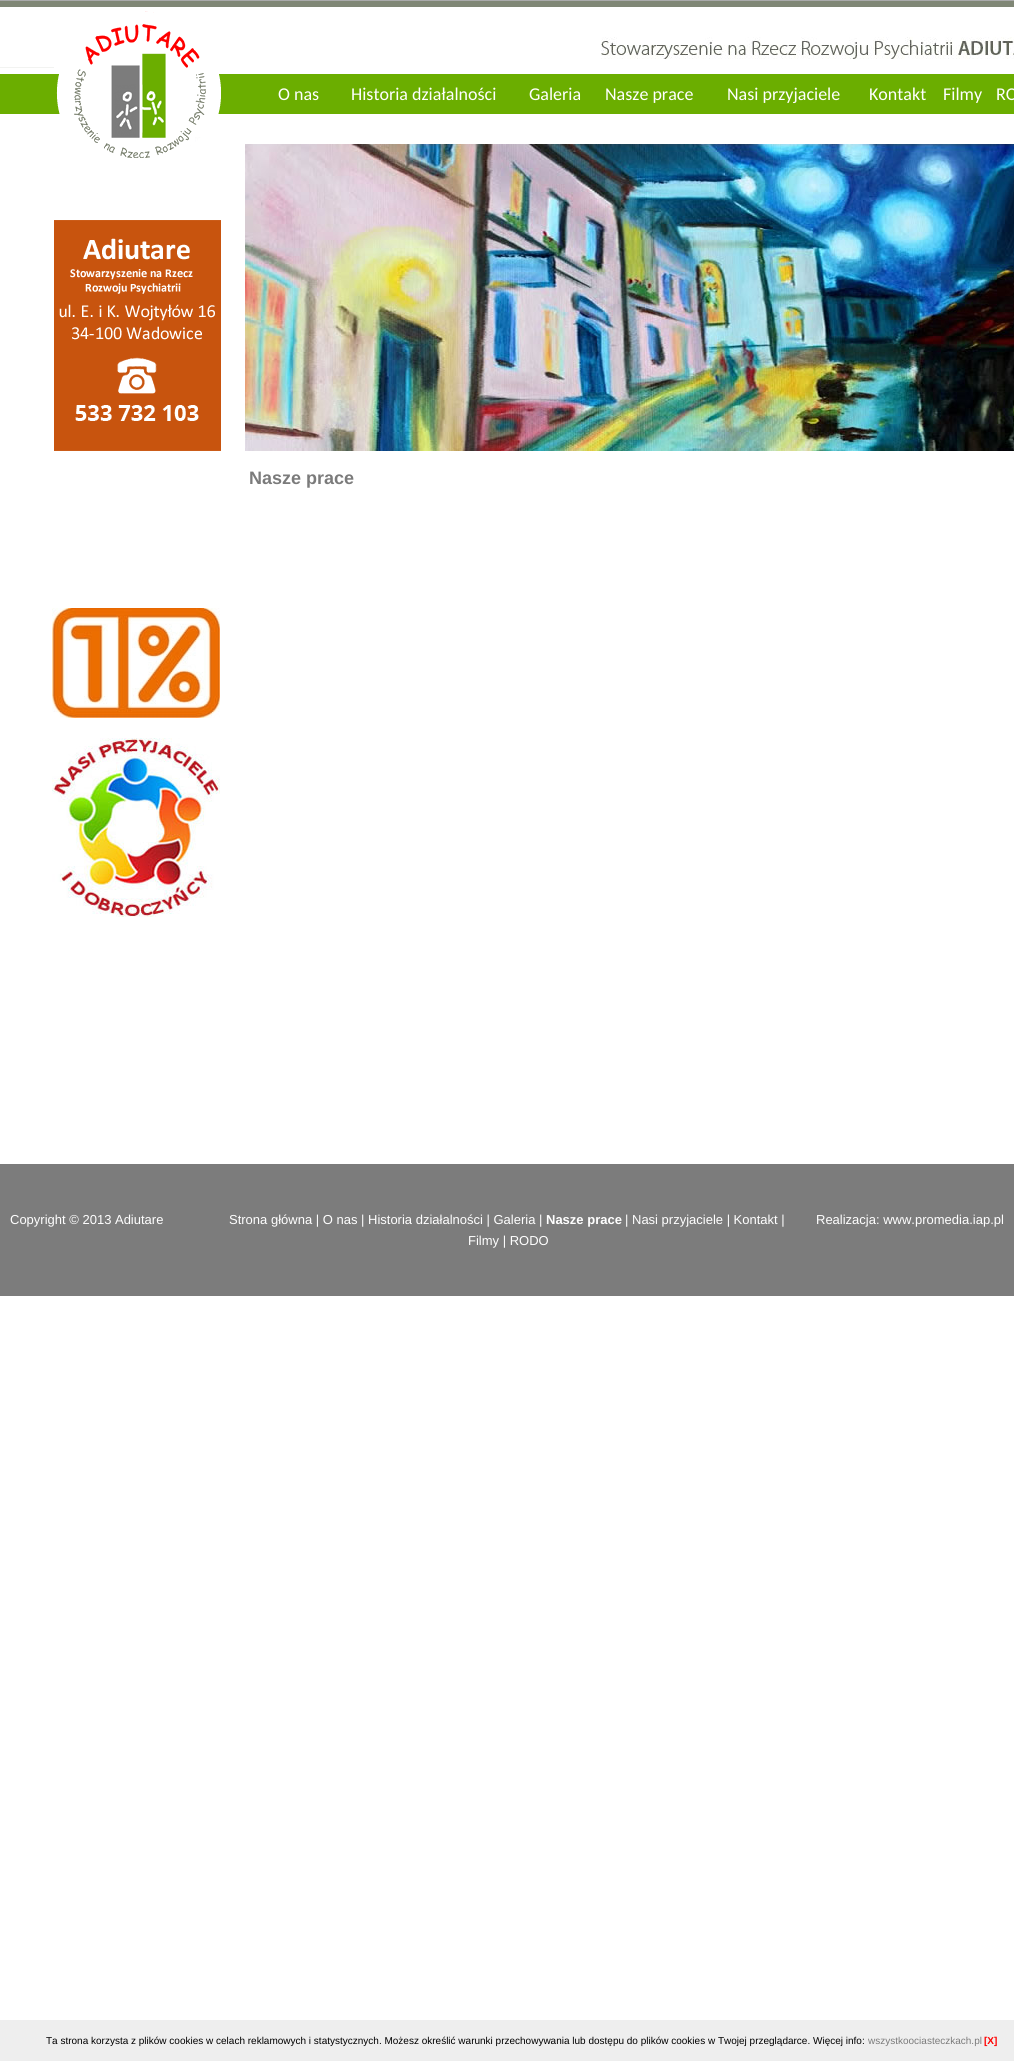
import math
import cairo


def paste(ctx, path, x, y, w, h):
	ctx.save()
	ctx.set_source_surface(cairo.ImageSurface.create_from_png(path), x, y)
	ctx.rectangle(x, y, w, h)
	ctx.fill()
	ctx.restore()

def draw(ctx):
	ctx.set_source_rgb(1, 1, 1)
	ctx.paint()
	paste(ctx, 'media/1.png', 0, 0, 1014, 960)
	ctx.set_source_rgb(1, 1, 1)
	ctx.rectangle(54, 7, 960, 444)
	ctx.fill()
	ctx.set_source_rgb(0.42, 0.682, 0)
	ctx.rectangle(54, 74, 960, 40)
	ctx.fill()
	paste(ctx, 'media/2.png', 56, 11, 165, 147)
	paste(ctx, 'media/3.png', 601, 37, 413, 22)
	ctx.select_font_face('Carlito')
	ctx.set_font_size(18)
	ctx.set_source_rgb(1, 1, 1)
	for x, y, s in [
		(278, 100, 'O nas'),
		(351, 100, 'Historia działalności'),
		(529, 100, 'Galeria'),
		(605, 100, 'Nasze prace'),
		(727, 100, 'Nasi przyjaciele'),
		(869, 100, 'Kontakt'),
		(943, 100, 'Filmy'),
		(996, 100, 'RO'),
	]:
		ctx.move_to(x, y)
		ctx.show_text(s)
	paste(ctx, 'media/4.png', 54, 220, 167, 231)
	paste(ctx, 'media/5.png', 245, 144, 769, 307)
	ctx.rectangle(510, 451, 504, 509)
	ctx.fill()
	ctx.select_font_face('Liberation Sans', cairo.FONT_SLANT_NORMAL, cairo.FONT_WEIGHT_BOLD)
	ctx.set_source_rgb(0.482, 0.482, 0.482)
	ctx.move_to(249, 484)
	ctx.show_text('Nasze prace')
	paste(ctx, 'media/6.png', 52, 608, 168, 110)
	paste(ctx, 'media/7.png', 52, 738, 168, 179)
	ctx.set_source_rgb(0.486, 0.486, 0.486)
	ctx.rectangle(0, 1164, 1014, 132)
	ctx.fill()
	ctx.select_font_face('Liberation Sans')
	ctx.set_font_size(13)
	ctx.set_source_rgb(1, 1, 1)
	ctx.move_to(10, 1224)
	ctx.show_text('Copyright © 2013 Adiutare')
	ctx.move_to(229, 1224)
	ctx.show_text('Strona główna | O nas | Historia działalności | Galeria |')
	ctx.select_font_face('Liberation Sans', cairo.FONT_SLANT_NORMAL, cairo.FONT_WEIGHT_BOLD)
	ctx.move_to(546, 1224)
	ctx.show_text('Nasze prace')
	ctx.select_font_face('Liberation Sans')
	for x, y, s in [
		(625, 1224, '| Nasi przyjaciele | Kontakt |'),
		(468, 1245, 'Filmy | RODO'),
		(816, 1224, 'Realizacja: www.promedia.iap.pl'),
	]:
		ctx.move_to(x, y)
		ctx.show_text(s)
	ctx.set_source_rgb(0.933, 0.933, 0.933)
	ctx.rectangle(0, 2020, 1014, 41)
	ctx.fill()
	ctx.set_font_size(10)
	ctx.set_source_rgb(0, 0, 0)
	ctx.move_to(46, 2044)
	ctx.show_text('Ta strona korzysta z plików cookies w celach reklamowych i statystycznych. Możesz określić warunki przechowywania lub dostępu do plików cookies w Twojej przeglądarce. Więcej info:')
	ctx.set_source_rgb(0.482, 0.482, 0.482)
	ctx.move_to(868, 2044)
	ctx.show_text('wszystkoociasteczkach.pl')
	ctx.select_font_face('Liberation Sans', cairo.FONT_SLANT_NORMAL, cairo.FONT_WEIGHT_BOLD)
	ctx.set_source_rgb(1, 0, 0)
	ctx.move_to(984, 2044)
	ctx.show_text('[X]')


surface = cairo.ImageSurface(cairo.FORMAT_RGB24, 1014, 2061)
ctx = cairo.Context(surface)
options = cairo.FontOptions()
options.set_hint_metrics(cairo.HINT_METRICS_OFF)
options.set_hint_style(cairo.HINT_STYLE_NONE)
ctx.set_font_options(options)
ctx.set_miter_limit(4)
draw(ctx)
surface.write_to_png('image.png')
